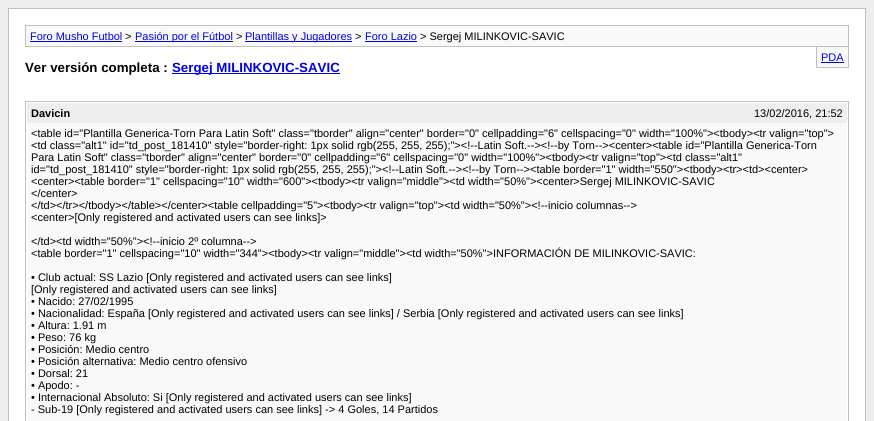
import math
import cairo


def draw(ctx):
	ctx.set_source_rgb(0.933, 0.933, 0.933)
	ctx.paint()
	ctx.set_source_rgb(1, 1, 1)
	ctx.rectangle(8.5, 8.5, 857, 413)
	ctx.fill_preserve()
	ctx.set_source_rgb(0.753, 0.753, 0.753)
	ctx.set_line_width(1)
	ctx.stroke()
	ctx.set_source_rgb(0.976, 0.976, 0.976)
	ctx.rectangle(25.5, 25.5, 823, 21)
	ctx.fill_preserve()
	ctx.set_source_rgb(0.753, 0.753, 0.753)
	ctx.stroke()
	ctx.select_font_face('Liberation Sans')
	ctx.set_font_size(11)
	ctx.set_source_rgb(0, 0, 0.933)
	ctx.move_to(30, 40)
	ctx.show_text('Foro Musho Futbol')
	ctx.rectangle(30, 41, 92, 1)
	ctx.fill()
	ctx.set_source_rgb(0, 0, 0)
	ctx.move_to(125, 40)
	ctx.show_text('>')
	ctx.set_source_rgb(0, 0, 0.933)
	ctx.rectangle(135, 41, 98, 1)
	ctx.fill()
	ctx.move_to(135, 40)
	ctx.show_text('Pasión por el Fútbol')
	ctx.set_source_rgb(0, 0, 0)
	ctx.move_to(236, 40)
	ctx.show_text('>')
	ctx.set_source_rgb(0, 0, 0.933)
	ctx.rectangle(245, 41, 107, 1)
	ctx.fill()
	ctx.move_to(245, 40)
	ctx.show_text('Plantillas y Jugadores')
	ctx.set_source_rgb(0, 0, 0)
	ctx.move_to(355, 40)
	ctx.show_text('>')
	ctx.set_source_rgb(0, 0, 0.933)
	ctx.move_to(365, 40)
	ctx.show_text('Foro Lazio')
	ctx.rectangle(365, 41, 52, 1)
	ctx.fill()
	ctx.set_source_rgb(0, 0, 0)
	ctx.move_to(420, 40)
	ctx.show_text('> Sergej MILINKOVIC-SAVIC')
	ctx.set_source_rgb(0.976, 0.976, 0.976)
	ctx.rectangle(817, 47, 31, 20)
	ctx.fill()
	ctx.set_source_rgb(0.753, 0.753, 0.753)
	ctx.rectangle(848, 47, 1, 21)
	ctx.rectangle(816, 67, 33, 1)
	ctx.rectangle(816, 47, 1, 21)
	ctx.fill()
	ctx.set_source_rgb(0, 0, 0.933)
	ctx.move_to(821, 61)
	ctx.show_text('PDA')
	ctx.rectangle(821, 62, 23, 1)
	ctx.fill()
	ctx.select_font_face('Liberation Sans', cairo.FONT_SLANT_NORMAL, cairo.FONT_WEIGHT_BOLD)
	ctx.set_font_size(13.3)
	ctx.set_source_rgb(0, 0, 0)
	ctx.move_to(25, 72)
	ctx.show_text('Ver versión completa :')
	ctx.set_source_rgb(0, 0, 0.933)
	ctx.rectangle(172, 73, 168, 1)
	ctx.fill()
	ctx.move_to(172, 72)
	ctx.show_text('Sergej MILINKOVIC-SAVIC')
	ctx.rectangle(25.5, 101.5, 823, 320)
	ctx.set_source_rgb(0.753, 0.753, 0.753)
	ctx.stroke()
	ctx.set_source_rgb(0.933, 0.933, 0.933)
	ctx.rectangle(27, 103, 820, 20)
	ctx.fill()
	ctx.set_font_size(11)
	ctx.set_source_rgb(0, 0, 0)
	ctx.move_to(31, 117)
	ctx.show_text('Davicin')
	ctx.select_font_face('Liberation Sans')
	ctx.move_to(754, 117)
	ctx.show_text('13/02/2016, 21:52')
	ctx.set_source_rgb(0.976, 0.976, 0.976)
	ctx.rectangle(27, 123, 820, 298)
	ctx.fill()
	ctx.set_source_rgb(0, 0, 0)
	for x, y, s in [
		(31, 137, '<table id="Plantilla Generica-Torn Para Latin Soft" class="tborder" align="center" border="0" cellpadding="6" cellspacing="0" width="100%"><tbody><tr valign="top">'),
		(31, 149, '<td class="alt1" id="td_post_181410" style="border-right: 1px solid rgb(255, 255, 255);"><!--Latin Soft.--><!--by Torn--><center><table id="Plantilla Generica-Torn'),
		(31, 161, 'Para Latin Soft" class="tborder" align="center" border="0" cellpadding="6" cellspacing="0" width="100%"><tbody><tr valign="top"><td class="alt1"'),
		(31, 173, 'id="td_post_181410" style="border-right: 1px solid rgb(255, 255, 255);"><!--Latin Soft.--><!--by Torn--><table border="1" width="550"><tbody><tr><td><center>'),
		(31, 185, '<center><table border="1" cellspacing="10" width="600"><tbody><tr valign="middle"><td width="50%"><center>Sergej MILINKOVIC-SAVIC'),
		(31, 197, '</center>'),
		(31, 209, '</td></tr></tbody></table></center><table cellpadding="5"><tbody><tr valign="top"><td width="50%"><!--inicio columnas-->'),
		(31, 221, '<center>[Only registered and activated users can see links]>'),
		(31, 245, '</td><td width="50%"><!--inicio 2º columna-->'),
		(31, 257, '<table border="1" cellspacing="10" width="344"><tbody><tr valign="middle"><td width="50%">INFORMACIÓN DE MILINKOVIC-SAVIC:'),
		(31, 281, '• Club actual: SS Lazio [Only registered and activated users can see links]'),
		(31, 293, '[Only registered and activated users can see links]'),
		(31, 305, '• Nacido: 27/02/1995'),
		(31, 317, '• Nacionalidad: España [Only registered and activated users can see links] / Serbia [Only registered and activated users can see links]'),
		(31, 329, '• Altura: 1.91 m'),
		(31, 341, '• Peso: 76 kg'),
		(31, 353, '• Posición: Medio centro'),
		(31, 365, '• Posición alternativa: Medio centro ofensivo'),
		(31, 377, '• Dorsal: 21'),
		(31, 389, '• Apodo: -'),
		(31, 401, '• Internacional Absoluto: Si [Only registered and activated users can see links]'),
		(31, 413, '- Sub-19 [Only registered and activated users can see links] -> 4 Goles, 14 Partidos'),
	]:
		ctx.move_to(x, y)
		ctx.show_text(s)


surface = cairo.ImageSurface(cairo.FORMAT_RGB24, 874, 421)
ctx = cairo.Context(surface)
options = cairo.FontOptions()
options.set_hint_metrics(cairo.HINT_METRICS_OFF)
options.set_hint_style(cairo.HINT_STYLE_NONE)
ctx.set_font_options(options)
ctx.set_miter_limit(4)
draw(ctx)
surface.write_to_png('image.png')
